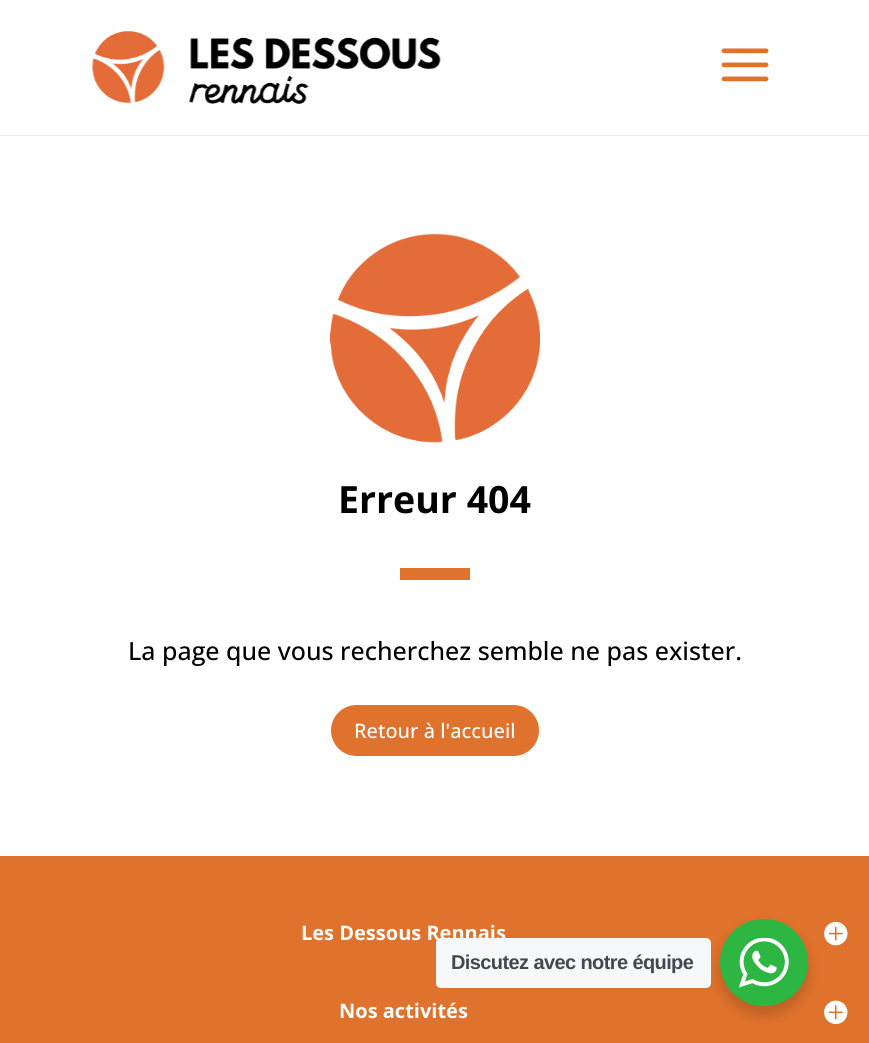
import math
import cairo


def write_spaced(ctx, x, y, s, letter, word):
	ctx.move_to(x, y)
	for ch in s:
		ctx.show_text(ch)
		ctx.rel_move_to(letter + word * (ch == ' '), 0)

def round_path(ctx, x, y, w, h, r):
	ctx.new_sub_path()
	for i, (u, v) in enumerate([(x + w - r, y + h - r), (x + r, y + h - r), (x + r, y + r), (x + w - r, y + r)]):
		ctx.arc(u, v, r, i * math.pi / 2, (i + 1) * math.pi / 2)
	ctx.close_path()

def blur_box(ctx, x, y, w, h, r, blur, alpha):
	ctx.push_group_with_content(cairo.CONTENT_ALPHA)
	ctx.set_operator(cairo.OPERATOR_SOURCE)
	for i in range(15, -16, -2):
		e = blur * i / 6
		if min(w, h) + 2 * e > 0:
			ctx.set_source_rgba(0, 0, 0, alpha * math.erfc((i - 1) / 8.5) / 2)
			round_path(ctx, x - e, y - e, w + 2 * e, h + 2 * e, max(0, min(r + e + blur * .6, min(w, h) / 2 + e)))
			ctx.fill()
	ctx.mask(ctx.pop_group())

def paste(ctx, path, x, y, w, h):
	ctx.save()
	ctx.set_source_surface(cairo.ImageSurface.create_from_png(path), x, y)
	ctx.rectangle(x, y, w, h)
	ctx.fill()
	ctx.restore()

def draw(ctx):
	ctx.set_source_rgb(1, 1, 1)
	ctx.paint()
	ctx.set_source_rgb(0.902, 0.902, 0.902)
	ctx.rectangle(0, 135, 869, 1)
	ctx.fill()
	paste(ctx, 'media/1.png', 92, 31, 349, 73)
	paste(ctx, 'media/2.png', 721, 48, 48, 34)
	paste(ctx, 'media/3.png', 330, 233, 210, 210)
	ctx.select_font_face('Open Sans', cairo.FONT_SLANT_NORMAL, cairo.FONT_WEIGHT_BOLD)
	ctx.set_font_size(37.5)
	ctx.set_source_rgb(0, 0, 0)
	ctx.move_to(338, 513)
	ctx.show_text('Erreur 404')
	ctx.set_source_rgb(0.875, 0.447, 0.173)
	ctx.rectangle(400, 568, 70, 12)
	ctx.fill()
	ctx.select_font_face('Open Sans Medium')
	ctx.set_font_size(25)
	ctx.set_source_rgb(0, 0, 0)
	ctx.move_to(128, 660)
	ctx.show_text('La page que vous recherchez semble ne pas exister.')
	ctx.set_source_rgb(0.875, 0.447, 0.173)
	round_path(ctx, 332.5, 706.5, 205, 48, 24)
	ctx.fill_preserve()
	ctx.set_line_width(3)
	ctx.stroke()
	ctx.set_font_size(20)
	ctx.set_source_rgb(1, 1, 1)
	ctx.move_to(354, 738)
	ctx.show_text('Retour à l\'accueil')
	ctx.set_source_rgb(0.875, 0.447, 0.173)
	ctx.rectangle(0, 856, 869, 187)
	ctx.fill()
	ctx.select_font_face('Open Sans', cairo.FONT_SLANT_NORMAL, cairo.FONT_WEIGHT_BOLD)
	ctx.set_source_rgb(1, 1, 1)
	ctx.move_to(301, 940)
	ctx.show_text('Les Dessous Rennais')
	paste(ctx, 'media/4.png', 824, 921, 24, 25)
	ctx.move_to(339, 1018)
	ctx.show_text('Nos activités')
	paste(ctx, 'media/5.png', 824, 1000, 24, 25)
	ctx.set_source_rgb(0, 0, 0)
	blur_box(ctx, 718, 924, 92, 92, 46, 5, 0.14)
	ctx.set_source_rgb(0.961, 0.969, 0.976)
	round_path(ctx, 436, 938, 275, 50, 5)
	ctx.fill()
	ctx.select_font_face('Liberation Sans', cairo.FONT_SLANT_NORMAL, cairo.FONT_WEIGHT_BOLD)
	ctx.set_source_rgb(0.263, 0.278, 0.306)
	write_spaced(ctx, 451, 969, 'Discutez avec notre équipe', -0.6, 0)
	ctx.set_source_rgb(0.176, 0.718, 0.259)
	round_path(ctx, 720, 919, 88, 87, 43.5)
	ctx.fill()
	paste(ctx, 'media/6.png', 739, 938, 50, 50)


surface = cairo.ImageSurface(cairo.FORMAT_RGB24, 869, 1043)
ctx = cairo.Context(surface)
options = cairo.FontOptions()
options.set_hint_metrics(cairo.HINT_METRICS_OFF)
options.set_hint_style(cairo.HINT_STYLE_NONE)
ctx.set_font_options(options)
ctx.set_miter_limit(4)
draw(ctx)
surface.write_to_png('image.png')
